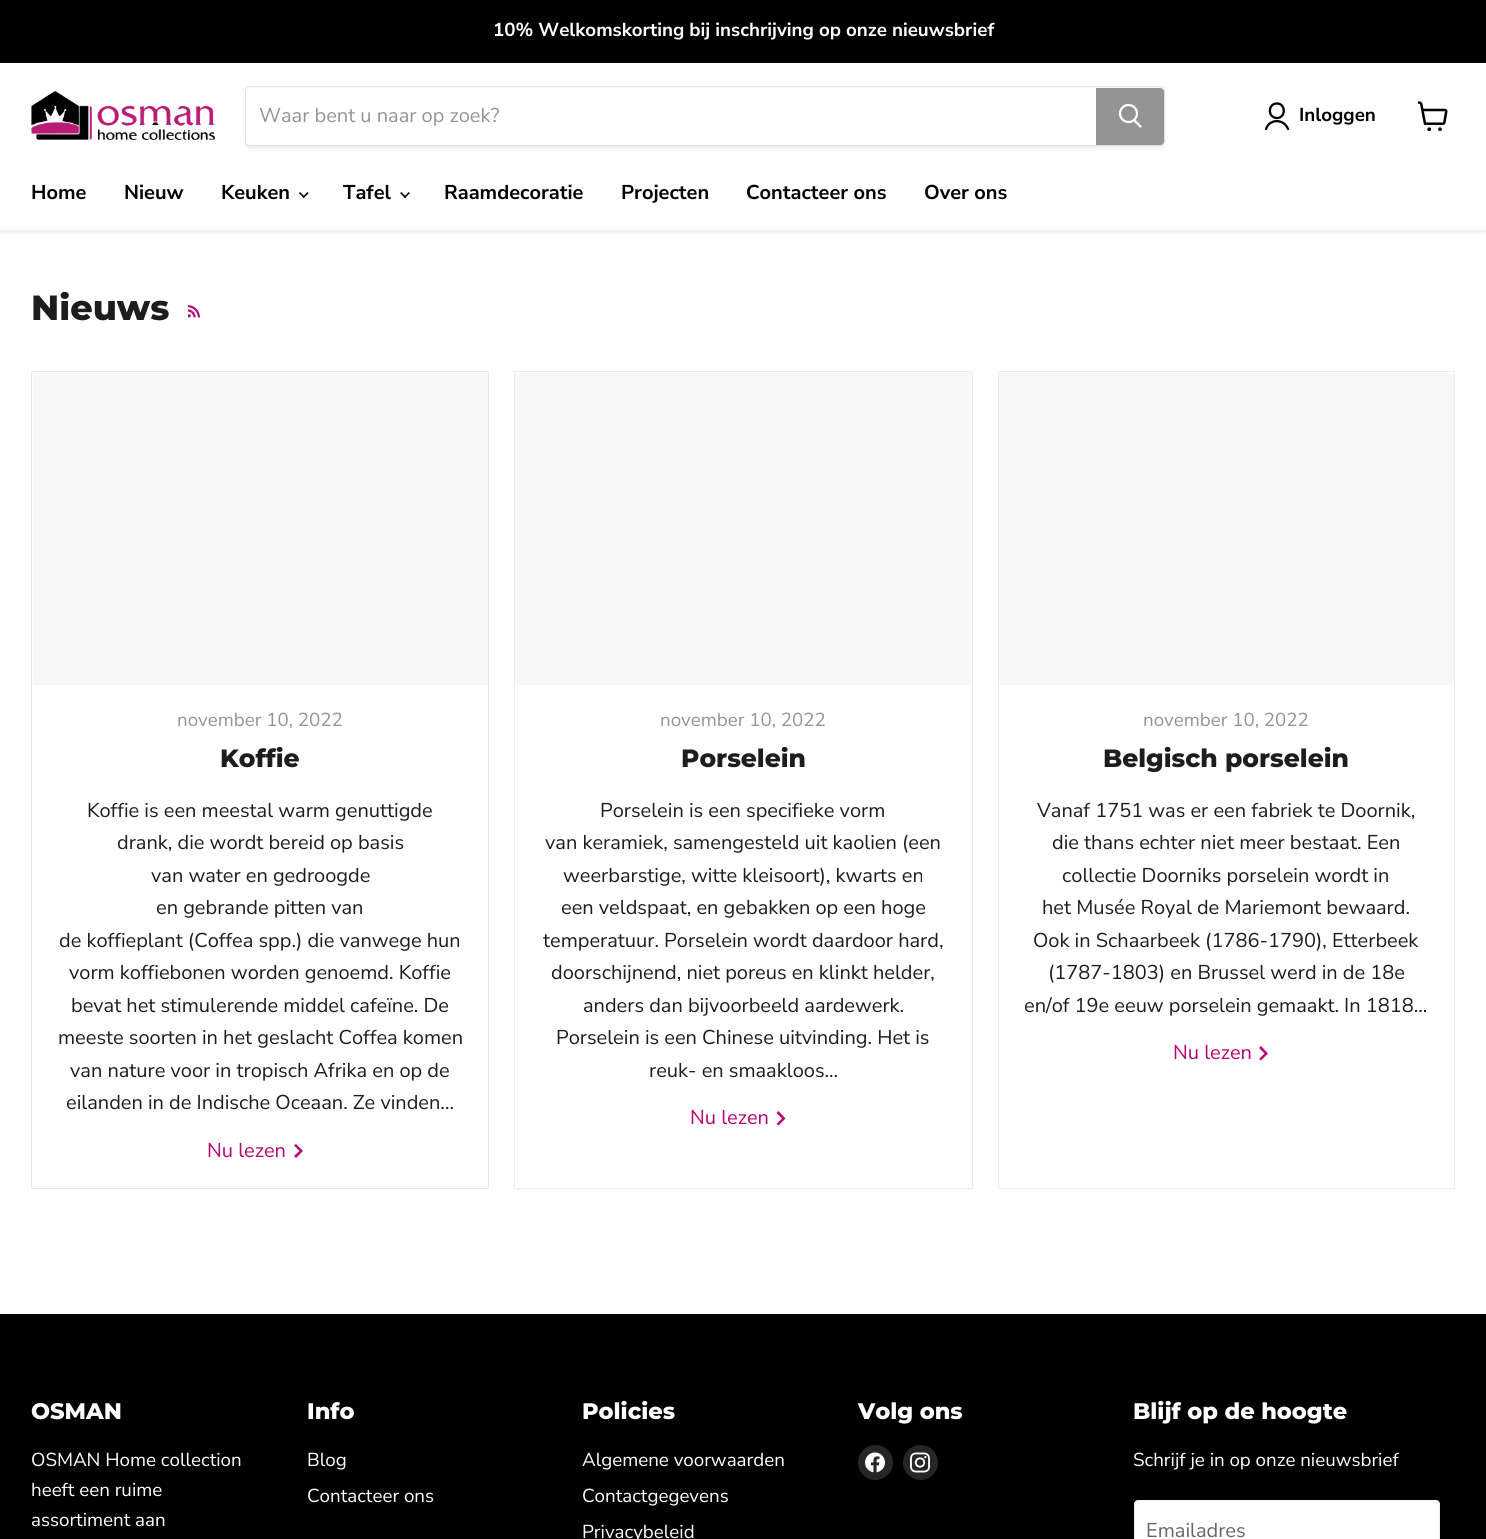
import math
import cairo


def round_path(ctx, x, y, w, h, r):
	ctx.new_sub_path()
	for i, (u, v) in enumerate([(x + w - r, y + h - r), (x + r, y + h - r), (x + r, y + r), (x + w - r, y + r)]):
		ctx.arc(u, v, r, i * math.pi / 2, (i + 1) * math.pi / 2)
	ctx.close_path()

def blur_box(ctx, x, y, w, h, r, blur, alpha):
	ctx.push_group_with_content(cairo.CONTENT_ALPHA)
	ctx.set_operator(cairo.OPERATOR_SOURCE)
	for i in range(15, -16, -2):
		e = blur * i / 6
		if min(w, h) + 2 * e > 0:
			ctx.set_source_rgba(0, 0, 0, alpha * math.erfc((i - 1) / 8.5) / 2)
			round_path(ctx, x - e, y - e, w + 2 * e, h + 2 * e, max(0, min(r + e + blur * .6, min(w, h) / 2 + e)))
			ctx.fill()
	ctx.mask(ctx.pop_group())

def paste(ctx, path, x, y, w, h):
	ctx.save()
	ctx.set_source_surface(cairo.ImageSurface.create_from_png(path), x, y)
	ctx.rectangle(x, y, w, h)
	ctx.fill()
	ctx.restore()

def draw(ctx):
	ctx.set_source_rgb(1, 1, 1)
	ctx.paint()
	ctx.set_source_rgb(0, 0, 0)
	ctx.rectangle(0, 0, 1486, 63)
	ctx.fill()
	ctx.select_font_face('Nunito Sans', cairo.FONT_SLANT_NORMAL, cairo.FONT_WEIGHT_BOLD)
	ctx.set_font_size(18.75)
	ctx.set_source_rgb(1, 1, 1)
	ctx.move_to(493, 36)
	ctx.show_text('10% Welkomskorting bij inschrijving op onze nieuwsbrief')
	ctx.save()
	ctx.set_fill_rule(cairo.FILL_RULE_EVEN_ODD)
	ctx.new_path()
	ctx.move_to(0, 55)
	ctx.line_to(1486, 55)
	ctx.line_to(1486, 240)
	ctx.line_to(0, 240)
	ctx.close_path()
	ctx.move_to(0, 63)
	ctx.line_to(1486, 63)
	ctx.line_to(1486, 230)
	ctx.line_to(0, 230)
	ctx.close_path()
	ctx.clip()
	ctx.set_source_rgb(0.502, 0.502, 0.502)
	blur_box(ctx, 0, 64, 1486, 167, 0, 2.5, 0.25)
	ctx.restore()
	paste(ctx, 'media/1.png', 31, 91, 185, 49)
	ctx.set_source_rgb(0.502, 0.502, 0.502)
	blur_box(ctx, 245, 89, 920, 60, 5, 2, 0.11)
	round_path(ctx, 245.5, 86.5, 919, 59, 4.5)
	ctx.set_source_rgba(0.502, 0.502, 0.502, 0.2)
	ctx.set_line_width(1)
	ctx.stroke()
	ctx.set_source_rgb(1, 1, 1)
	ctx.new_path()
	ctx.move_to(250, 88)
	ctx.line_to(1096, 88)
	ctx.line_to(1096, 145)
	ctx.line_to(250, 145)
	ctx.curve_to(248, 145, 246, 143, 246, 141)
	ctx.line_to(246, 92)
	ctx.curve_to(246, 90, 248, 88, 250, 88)
	ctx.close_path()
	ctx.fill()
	ctx.select_font_face('Nunito Sans')
	ctx.set_font_size(20)
	ctx.set_source_rgb(0.58, 0.58, 0.58)
	ctx.move_to(259, 122)
	ctx.show_text('Waar bent u naar op zoek?')
	ctx.new_path()
	ctx.move_to(1096.5, 88.5)
	ctx.line_to(1160, 88.5)
	ctx.curve_to(1162, 88.5, 1163.5, 90, 1163.5, 92)
	ctx.line_to(1163.5, 141)
	ctx.curve_to(1163.5, 143, 1162, 144.5, 1160, 144.5)
	ctx.line_to(1096.5, 144.5)
	ctx.close_path()
	ctx.fill_preserve()
	ctx.stroke()
	ctx.new_path()
	ctx.move_to(1140.5, 126.5)
	ctx.line_to(1134.5, 120.5)
	ctx.set_source_rgb(1, 1, 1)
	ctx.set_line_width(2.2)
	ctx.set_line_cap(cairo.LINE_CAP_ROUND)
	ctx.stroke()
	ctx.arc(1128.5, 113.5, 8.5, 0, 2 * math.pi)
	ctx.set_line_cap(cairo.LINE_CAP_BUTT)
	ctx.stroke()
	ctx.new_path()
	ctx.move_to(1277, 118)
	ctx.curve_to(1286, 118, 1286, 103.5, 1277, 103.5)
	ctx.curve_to(1267.5, 103.5, 1267.5, 118, 1277, 118)
	ctx.close_path()
	ctx.move_to(1288, 129)
	ctx.curve_to(1284, 118.5, 1269.5, 118.5, 1266, 129)
	ctx.set_source_rgb(0, 0, 0)
	ctx.set_line_width(2.3)
	ctx.set_line_cap(cairo.LINE_CAP_ROUND)
	ctx.set_line_join(cairo.LINE_JOIN_ROUND)
	ctx.stroke()
	ctx.select_font_face('Nunito Sans', cairo.FONT_SLANT_NORMAL, cairo.FONT_WEIGHT_BOLD)
	ctx.set_font_size(18.75)
	ctx.move_to(1299, 121)
	ctx.show_text('Inloggen')
	paste(ctx, 'media/2.png', 1418, 101, 30, 30)
	ctx.set_font_size(20)
	for x, y, s in [
		(31, 199, 'Home'),
		(124, 199, 'Nieuw'),
		(221, 199, 'Keuken'),
	]:
		ctx.move_to(x, y)
		ctx.show_text(s)
	paste(ctx, 'media/3.png', 299, 192, 10, 6)
	ctx.move_to(343, 199)
	ctx.show_text('Tafel')
	paste(ctx, 'media/4.png', 400, 192, 10, 6)
	for x, y, s in [
		(444, 199, 'Raamdecoratie'),
		(621, 199, 'Projecten'),
		(746, 199, 'Contacteer ons'),
		(924, 199, 'Over ons'),
	]:
		ctx.move_to(x, y)
		ctx.show_text(s)
	ctx.select_font_face('Montserrat ExtraBold')
	ctx.set_font_size(35)
	ctx.set_source_rgb(0.114, 0.114, 0.114)
	ctx.move_to(31, 320)
	ctx.show_text('Nieuws')
	paste(ctx, 'media/5.png', 188, 305, 12, 13)
	ctx.rectangle(31.5, 371.5, 457, 817)
	ctx.set_source_rgb(0.914, 0.914, 0.914)
	ctx.set_line_width(1)
	ctx.set_line_cap(cairo.LINE_CAP_BUTT)
	ctx.set_line_join(cairo.LINE_JOIN_MITER)
	ctx.stroke()
	ctx.set_source_rgb(0.965, 0.965, 0.965)
	ctx.rectangle(33, 373, 455, 312)
	ctx.fill()
	ctx.select_font_face('Nunito Sans')
	ctx.set_font_size(18.75)
	ctx.set_source_rgb(0.58, 0.58, 0.58)
	ctx.move_to(177, 726)
	ctx.show_text('november 10, 2022')
	ctx.select_font_face('Montserrat ExtraBold')
	ctx.set_font_size(25)
	ctx.set_source_rgb(0.114, 0.114, 0.114)
	ctx.move_to(220, 767)
	ctx.show_text('Koffie')
	ctx.select_font_face('Nunito Sans')
	ctx.set_font_size(20)
	for x, y, s in [
		(87, 817, 'Koffie is een meestal warm genuttigde'),
		(117, 849, 'drank, die wordt bereid op basis'),
		(151, 882, 'van water en gedroogde'),
		(156, 914, 'en gebrande pitten van'),
		(59, 947, 'de koffieplant (Coffea spp.) die vanwege hun'),
		(69, 979, 'vorm koffiebonen worden genoemd. Koffie'),
		(71, 1012, 'bevat het stimulerende middel cafeïne. De'),
		(58, 1044, 'meeste soorten in het geslacht Coffea komen'),
		(70, 1077, 'van nature voor in tropisch Afrika en op de'),
		(66, 1109, 'eilanden in de Indische Oceaan. Ze vinden...'),
	]:
		ctx.move_to(x, y)
		ctx.show_text(s)
	ctx.set_source_rgb(0.714, 0.024, 0.455)
	ctx.move_to(207, 1157)
	ctx.show_text('Nu lezen')
	ctx.set_fill_rule(cairo.FILL_RULE_EVEN_ODD)
	ctx.new_path()
	ctx.move_to(299.5, 1151)
	ctx.line_to(294, 1145.5)
	ctx.line_to(296, 1144)
	ctx.line_to(303, 1151)
	ctx.line_to(296, 1158)
	ctx.line_to(294, 1156)
	ctx.close_path()
	ctx.fill()
	ctx.rectangle(514.5, 371.5, 458, 817)
	ctx.set_source_rgba(0.502, 0.502, 0.502, 0.16)
	ctx.stroke()
	ctx.set_source_rgb(0.965, 0.965, 0.965)
	ctx.rectangle(515, 373, 456, 312)
	ctx.fill()
	ctx.set_font_size(18.75)
	ctx.set_source_rgb(0.58, 0.58, 0.58)
	ctx.move_to(660, 726)
	ctx.show_text('november 10, 2022')
	ctx.select_font_face('Montserrat ExtraBold')
	ctx.set_font_size(25)
	ctx.set_source_rgb(0.114, 0.114, 0.114)
	ctx.move_to(681, 767)
	ctx.show_text('Porselein')
	ctx.select_font_face('Nunito Sans')
	ctx.set_font_size(20)
	for x, y, s in [
		(600, 817, 'Porselein is een specifieke vorm'),
		(545, 849, 'van keramiek, samengesteld uit kaolien (een'),
		(563, 882, 'weerbarstige, witte kleisoort), kwarts en'),
		(561, 914, 'een veldspaat, en gebakken op een hoge'),
		(543, 947, 'temperatuur. Porselein wordt daardoor hard,'),
		(551, 979, 'doorschijnend, niet poreus en klinkt helder,'),
		(583, 1012, 'anders dan bijvoorbeeld aardewerk.'),
		(556, 1044, 'Porselein is een Chinese uitvinding. Het is'),
		(649, 1077, 'reuk- en smaakloos...'),
	]:
		ctx.move_to(x, y)
		ctx.show_text(s)
	ctx.set_source_rgb(0.714, 0.024, 0.455)
	ctx.move_to(690, 1124)
	ctx.show_text('Nu lezen')
	ctx.new_path()
	ctx.move_to(782, 1118.5)
	ctx.line_to(776.5, 1113)
	ctx.line_to(778.5, 1111)
	ctx.line_to(785.5, 1118.5)
	ctx.line_to(778.5, 1125.5)
	ctx.line_to(776.5, 1124)
	ctx.close_path()
	ctx.fill()
	ctx.rectangle(998.5, 371.5, 456, 817)
	ctx.set_source_rgba(0.502, 0.502, 0.502, 0.16)
	ctx.stroke()
	ctx.set_source_rgb(0.965, 0.965, 0.965)
	ctx.rectangle(999, 373, 455, 312)
	ctx.fill()
	ctx.set_font_size(18.75)
	ctx.set_source_rgb(0.58, 0.58, 0.58)
	ctx.move_to(1143, 726)
	ctx.show_text('november 10, 2022')
	ctx.select_font_face('Montserrat ExtraBold')
	ctx.set_font_size(25)
	ctx.set_source_rgb(0.114, 0.114, 0.114)
	ctx.move_to(1103, 767)
	ctx.show_text('Belgisch porselein')
	ctx.select_font_face('Nunito Sans')
	ctx.set_font_size(20)
	for x, y, s in [
		(1037, 817, 'Vanaf 1751 was er een fabriek te Doornik,'),
		(1052, 849, 'die thans echter niet meer bestaat. Een'),
		(1062, 882, 'collectie Doorniks porselein wordt in'),
		(1042, 914, 'het Musée Royal de Mariemont bewaard.'),
		(1033, 947, 'Ook in Schaarbeek (1786-1790), Etterbeek'),
		(1048, 979, '(1787-1803) en Brussel werd in de 18e'),
		(1024, 1012, 'en/of 19e eeuw porselein gemaakt. In 1818...'),
	]:
		ctx.move_to(x, y)
		ctx.show_text(s)
	ctx.set_source_rgb(0.714, 0.024, 0.455)
	ctx.move_to(1173, 1059)
	ctx.show_text('Nu lezen')
	ctx.new_path()
	ctx.move_to(1264.5, 1053.5)
	ctx.line_to(1259, 1048)
	ctx.line_to(1261, 1046)
	ctx.line_to(1268, 1053.5)
	ctx.line_to(1261, 1060.5)
	ctx.line_to(1259, 1059)
	ctx.close_path()
	ctx.fill()
	ctx.set_source_rgb(0, 0, 0)
	ctx.rectangle(0, 1314, 1486, 225)
	ctx.fill()
	ctx.select_font_face('Montserrat ExtraBold')
	ctx.set_font_size(22.5)
	ctx.set_source_rgb(1, 1, 1)
	ctx.move_to(31, 1419)
	ctx.show_text('OSMAN')
	ctx.select_font_face('Nunito Sans')
	ctx.set_font_size(18.75)
	for x, y, s in [
		(31, 1466, 'OSMAN Home collection'),
		(31, 1496, 'heeft een ruime'),
		(31, 1526, 'assortiment aan'),
	]:
		ctx.move_to(x, y)
		ctx.show_text(s)
	ctx.select_font_face('Montserrat ExtraBold')
	ctx.set_font_size(22.5)
	ctx.move_to(307, 1419)
	ctx.show_text('Info')
	ctx.select_font_face('Nunito Sans')
	ctx.set_font_size(18.75)
	ctx.move_to(307, 1466)
	ctx.show_text('Blog')
	ctx.move_to(307, 1502)
	ctx.show_text('Contacteer ons')
	ctx.select_font_face('Montserrat ExtraBold')
	ctx.set_font_size(22.5)
	ctx.move_to(582, 1419)
	ctx.show_text('Policies')
	ctx.select_font_face('Nunito Sans')
	ctx.set_font_size(18.75)
	for x, y, s in [
		(582, 1466, 'Algemene voorwaarden'),
		(582, 1502, 'Contactgegevens'),
		(582, 1538, 'Privacybeleid'),
	]:
		ctx.move_to(x, y)
		ctx.show_text(s)
	ctx.select_font_face('Montserrat ExtraBold')
	ctx.set_font_size(22.5)
	ctx.move_to(858, 1419)
	ctx.show_text('Volg ons')
	ctx.set_source_rgb(0.149, 0.149, 0.149)
	ctx.new_path()
	ctx.arc(875.5, 1462.5, 17.5, 0, 2 * math.pi)
	ctx.fill()
	paste(ctx, 'media/6.png', 865, 1452, 20, 21)
	ctx.arc(920.5, 1462.5, 17.5, 0, 2 * math.pi)
	ctx.fill()
	paste(ctx, 'media/7.png', 910, 1452, 20, 21)
	ctx.set_source_rgb(1, 1, 1)
	ctx.move_to(1133, 1419)
	ctx.show_text('Blijf op de hoogte')
	ctx.select_font_face('Nunito Sans')
	ctx.set_font_size(18.75)
	ctx.move_to(1133, 1466)
	ctx.show_text('Schrijf je in op onze nieuwsbrief')
	round_path(ctx, 1134.5, 1500.5, 305, 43, 3.5)
	ctx.fill_preserve()
	ctx.set_source_rgb(0.976, 0.902, 0.973)
	ctx.stroke()
	ctx.set_font_size(20)
	ctx.set_source_rgb(0.4, 0.4, 0.4)
	ctx.move_to(1146, 1537)
	ctx.show_text('Emailadres')


surface = cairo.ImageSurface(cairo.FORMAT_RGB24, 1486, 1539)
ctx = cairo.Context(surface)
options = cairo.FontOptions()
options.set_hint_metrics(cairo.HINT_METRICS_OFF)
options.set_hint_style(cairo.HINT_STYLE_NONE)
ctx.set_font_options(options)
ctx.set_miter_limit(4)
draw(ctx)
surface.write_to_png('image.png')
